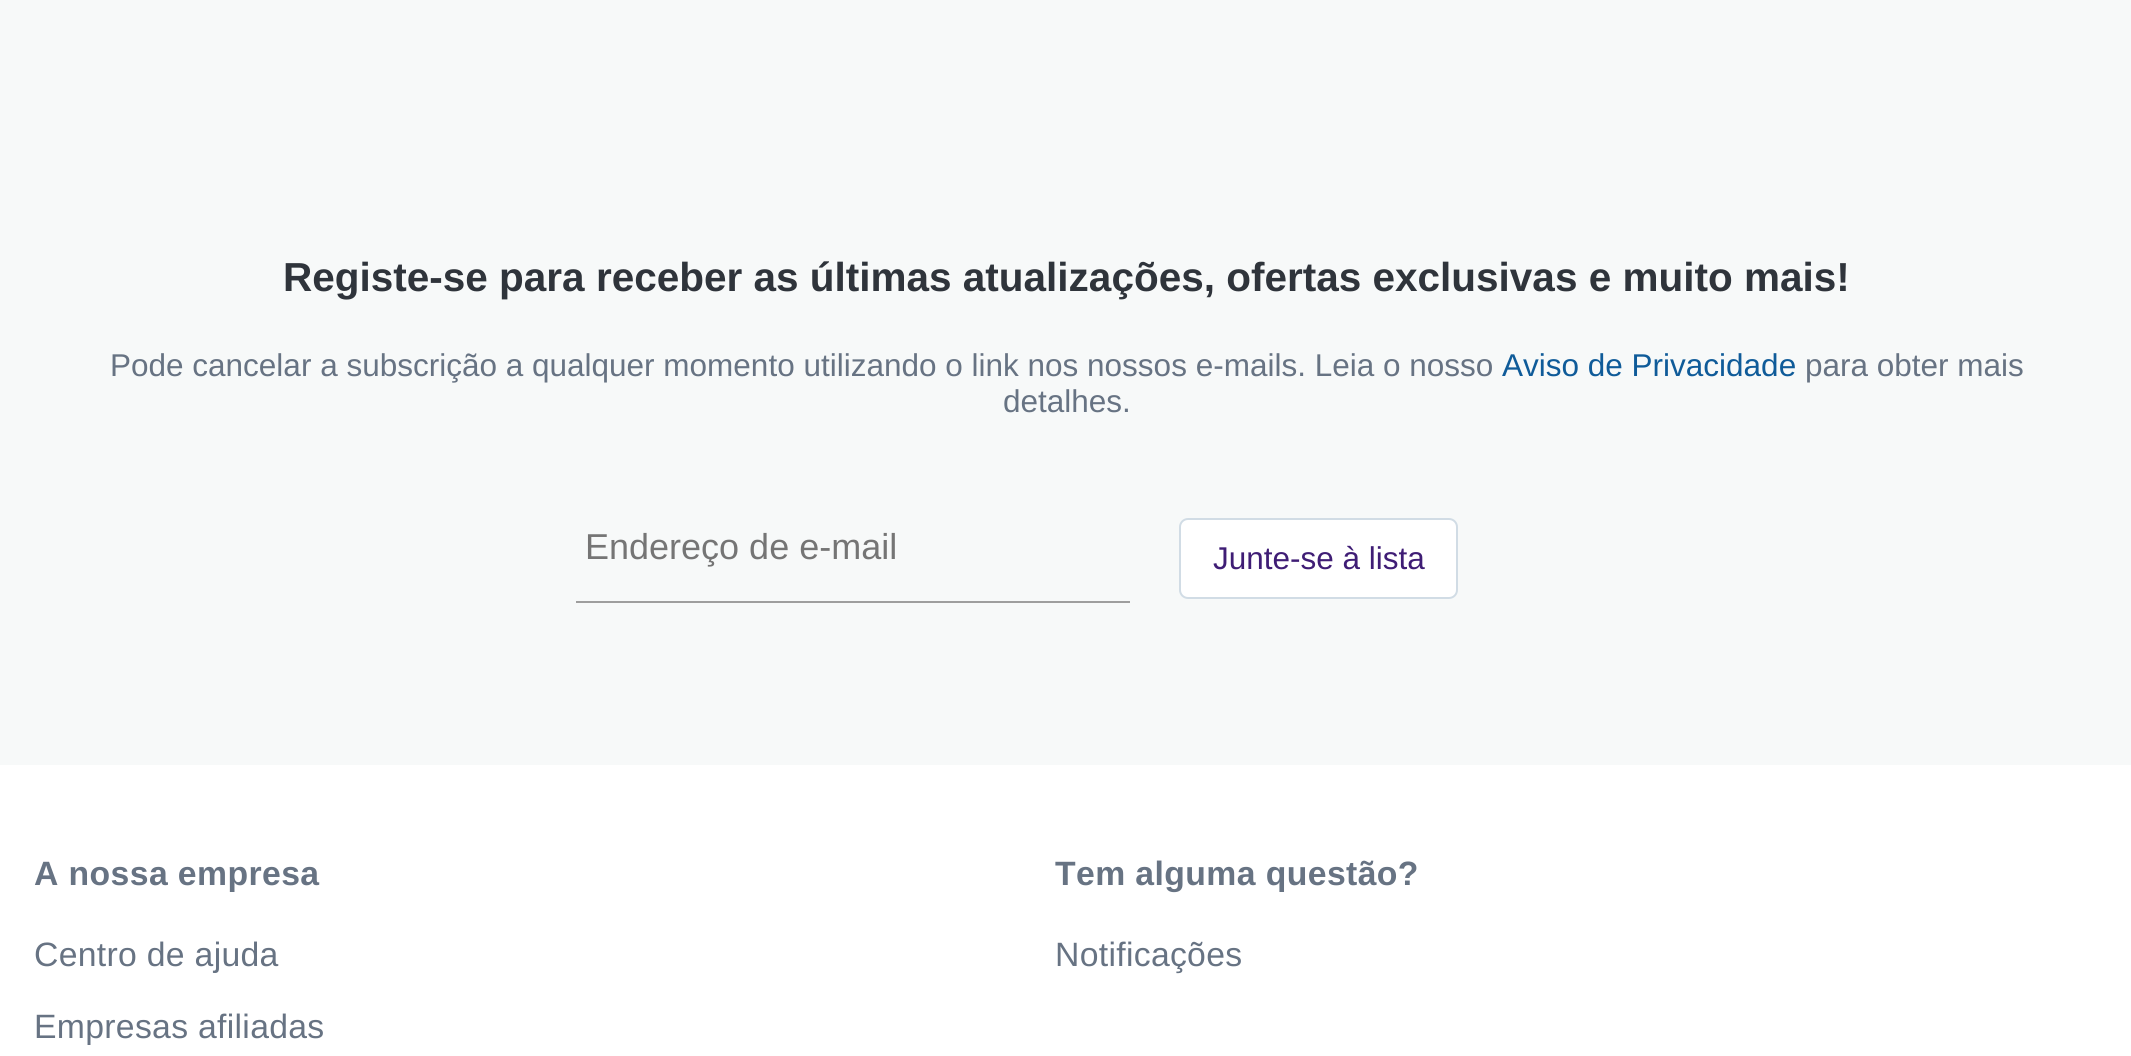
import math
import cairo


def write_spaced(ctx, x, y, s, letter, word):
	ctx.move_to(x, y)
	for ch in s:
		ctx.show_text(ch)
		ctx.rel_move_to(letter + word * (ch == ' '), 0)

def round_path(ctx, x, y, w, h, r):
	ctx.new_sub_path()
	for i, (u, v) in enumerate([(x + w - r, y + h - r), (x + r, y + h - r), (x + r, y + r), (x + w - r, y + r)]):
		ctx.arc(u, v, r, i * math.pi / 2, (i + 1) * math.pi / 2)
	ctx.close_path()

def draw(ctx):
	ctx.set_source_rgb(0.965, 0.973, 0.976)
	ctx.paint()
	ctx.select_font_face('Liberation Sans', cairo.FONT_SLANT_NORMAL, cairo.FONT_WEIGHT_BOLD)
	ctx.set_font_size(40.5)
	ctx.set_source_rgb(0.184, 0.204, 0.231)
	ctx.move_to(283, 291)
	ctx.show_text('Registe-se para receber as últimas atualizações, ofertas exclusivas e muito mais!')
	ctx.select_font_face('Liberation Sans')
	ctx.set_font_size(31.5)
	ctx.set_source_rgb(0.404, 0.451, 0.514)
	ctx.move_to(110, 376)
	ctx.show_text('Pode cancelar a subscrição a qualquer momento utilizando o link nos nossos e-mails. Leia o nosso')
	ctx.set_source_rgb(0.059, 0.357, 0.6)
	ctx.move_to(1502, 376)
	ctx.show_text('Aviso de Privacidade')
	ctx.set_source_rgb(0.404, 0.451, 0.514)
	ctx.move_to(1805, 376)
	ctx.show_text('para obter mais')
	ctx.move_to(1003, 412)
	ctx.show_text('detalhes.')
	ctx.set_source_rgb(0.62, 0.62, 0.62)
	ctx.rectangle(576, 601, 554, 2)
	ctx.fill()
	ctx.set_font_size(36)
	ctx.set_source_rgb(0.459, 0.459, 0.459)
	ctx.move_to(585, 559)
	ctx.show_text('Endereço de e-mail')
	ctx.set_source_rgb(1, 1, 1)
	round_path(ctx, 1180, 519, 277, 79, 8)
	ctx.fill_preserve()
	ctx.set_source_rgb(0.82, 0.863, 0.898)
	ctx.stroke()
	ctx.set_font_size(31.5)
	ctx.set_source_rgb(0.247, 0.114, 0.459)
	ctx.move_to(1213, 569)
	ctx.show_text('Junte-se à lista')
	ctx.set_source_rgb(1, 1, 1)
	ctx.rectangle(0, 765, 2131, 291)
	ctx.fill()
	ctx.select_font_face('Liberation Sans', cairo.FONT_SLANT_NORMAL, cairo.FONT_WEIGHT_BOLD)
	ctx.set_font_size(33.75)
	ctx.set_source_rgb(0.404, 0.451, 0.514)
	write_spaced(ctx, 34, 885, 'A nossa empresa', 0.4, 0)
	ctx.select_font_face('Liberation Sans')
	write_spaced(ctx, 34, 966, 'Centro de ajuda', 0.3, 0)
	write_spaced(ctx, 34, 1038, 'Empresas afiliadas', 0.3, 0)
	ctx.select_font_face('Liberation Sans', cairo.FONT_SLANT_NORMAL, cairo.FONT_WEIGHT_BOLD)
	write_spaced(ctx, 1055, 885, 'Tem alguma questão?', 0.4, 0)
	ctx.select_font_face('Liberation Sans')
	write_spaced(ctx, 1055, 966, 'Notificações', 0.3, 0)


surface = cairo.ImageSurface(cairo.FORMAT_RGB24, 2131, 1056)
ctx = cairo.Context(surface)
options = cairo.FontOptions()
options.set_hint_metrics(cairo.HINT_METRICS_OFF)
options.set_hint_style(cairo.HINT_STYLE_NONE)
ctx.set_font_options(options)
ctx.set_miter_limit(4)
draw(ctx)
surface.write_to_png('image.png')
